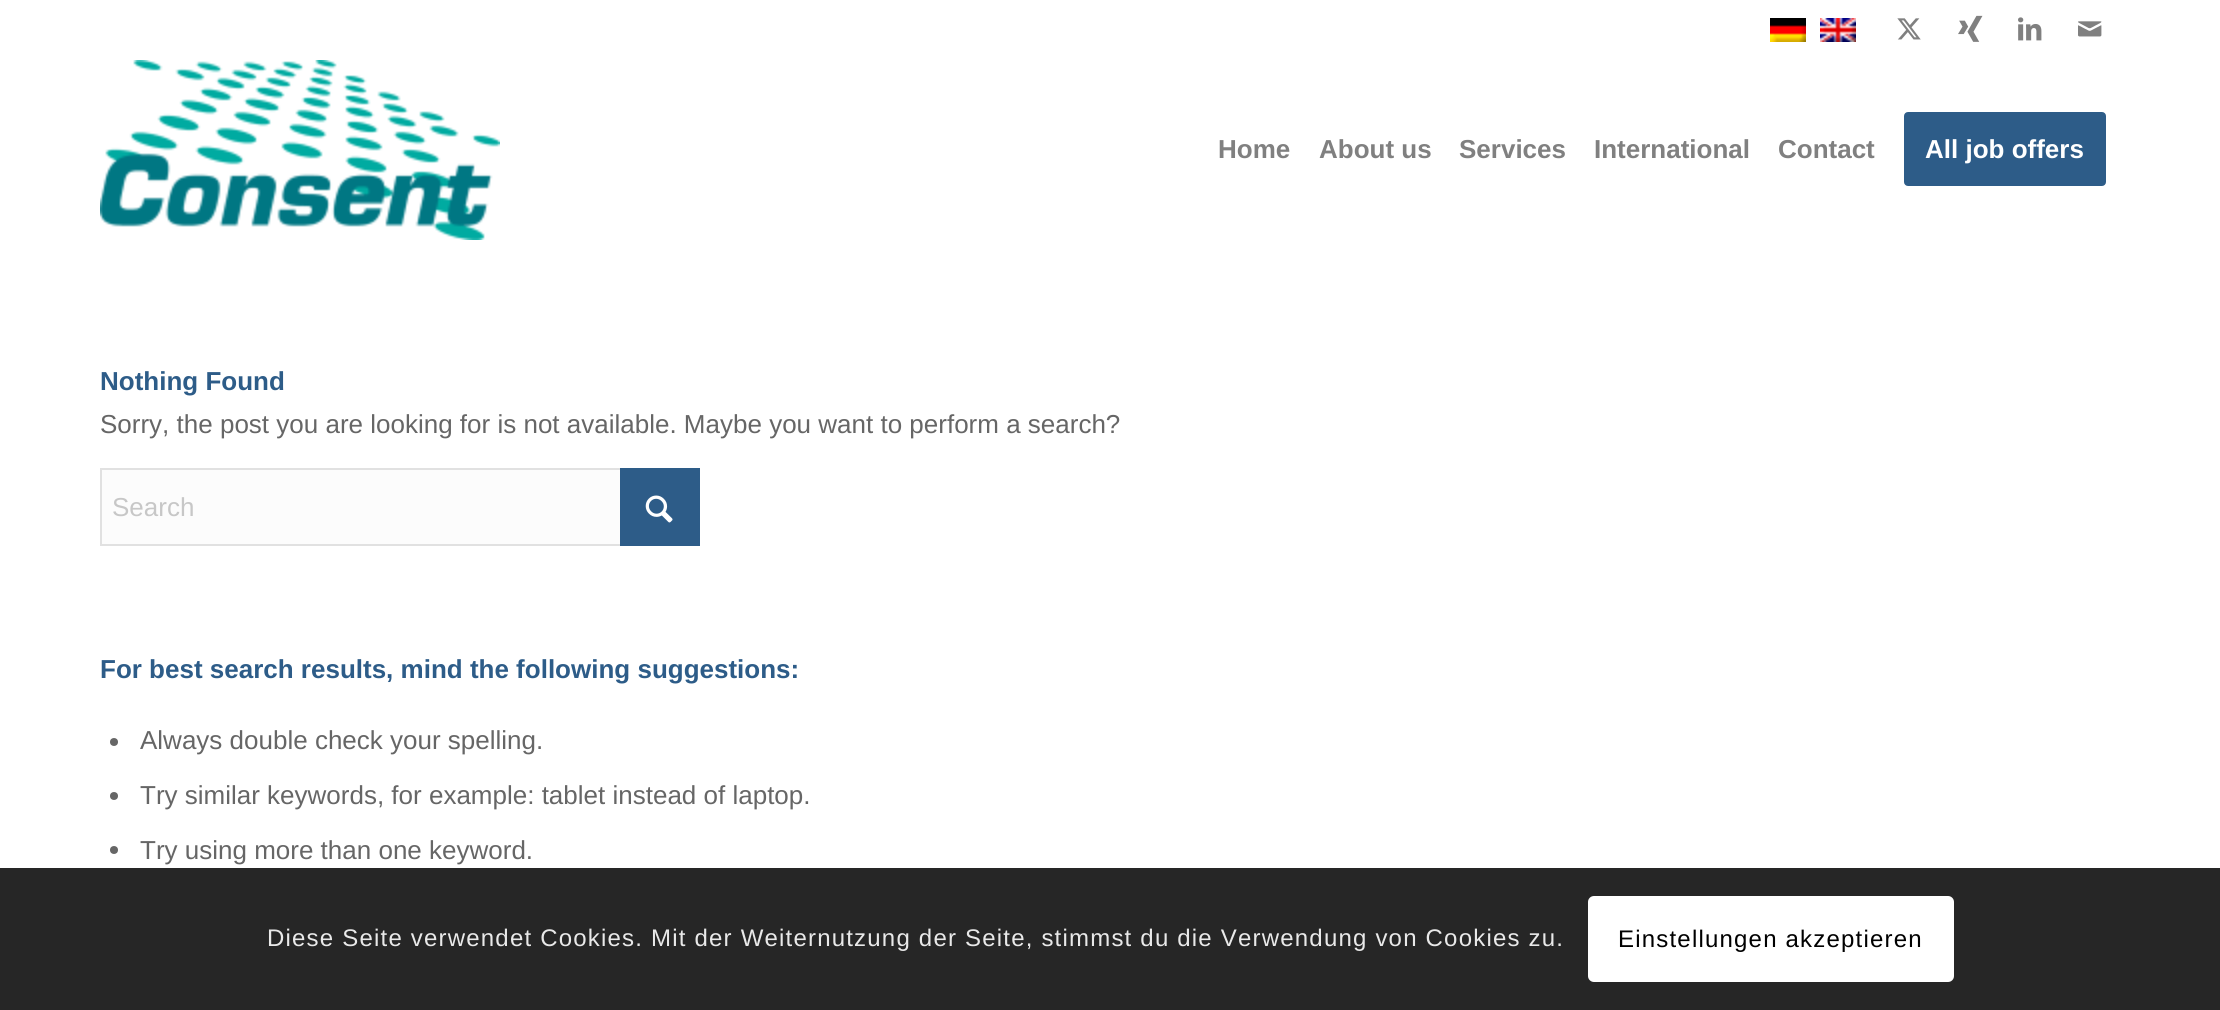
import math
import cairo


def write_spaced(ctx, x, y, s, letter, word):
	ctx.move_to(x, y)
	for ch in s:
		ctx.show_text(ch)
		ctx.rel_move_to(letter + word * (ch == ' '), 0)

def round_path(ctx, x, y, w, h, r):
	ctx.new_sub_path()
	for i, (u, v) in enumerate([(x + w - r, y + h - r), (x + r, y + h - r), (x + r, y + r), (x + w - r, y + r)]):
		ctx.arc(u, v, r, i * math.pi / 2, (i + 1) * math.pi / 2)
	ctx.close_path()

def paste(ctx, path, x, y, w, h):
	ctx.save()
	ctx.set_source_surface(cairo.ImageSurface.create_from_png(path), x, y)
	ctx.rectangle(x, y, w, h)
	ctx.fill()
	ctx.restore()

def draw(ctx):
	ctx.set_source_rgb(1, 1, 1)
	ctx.paint()
	paste(ctx, 'media/1.png', 1770, 18, 36, 24)
	paste(ctx, 'media/2.png', 1820, 18, 36, 24)
	paste(ctx, 'media/3.png', 1897, 18, 24, 22)
	paste(ctx, 'media/4.png', 1958, 15, 25, 27)
	paste(ctx, 'media/5.png', 2018, 17, 24, 24)
	paste(ctx, 'media/6.png', 2078, 21, 24, 16)
	paste(ctx, 'media/7.png', 100, 60, 400, 180)
	ctx.select_font_face('Liberation Sans', cairo.FONT_SLANT_NORMAL, cairo.FONT_WEIGHT_BOLD)
	ctx.set_font_size(26)
	ctx.set_source_rgb(0.502, 0.502, 0.502)
	for x, y, s in [
		(1218, 158, 'Home'),
		(1319, 158, 'About us'),
		(1459, 158, 'Services'),
		(1594, 158, 'International'),
		(1778, 158, 'Contact'),
	]:
		ctx.move_to(x, y)
		ctx.show_text(s)
	ctx.set_source_rgb(0.176, 0.361, 0.533)
	round_path(ctx, 1906, 114, 198, 70, 2)
	ctx.fill_preserve()
	ctx.set_line_width(4)
	ctx.stroke()
	ctx.set_source_rgb(1, 1, 1)
	ctx.move_to(1925, 158)
	ctx.show_text('All job offers')
	ctx.set_source_rgb(0.176, 0.361, 0.533)
	ctx.move_to(100, 390)
	ctx.show_text('Nothing Found')
	ctx.select_font_face('Liberation Sans')
	ctx.set_source_rgb(0.4, 0.4, 0.4)
	ctx.move_to(100, 433)
	ctx.show_text('Sorry, the post you are looking for is not available. Maybe you want to perform a search?')
	ctx.set_source_rgb(0.988, 0.988, 0.988)
	ctx.rectangle(102, 470, 518, 74)
	ctx.fill()
	ctx.rectangle(101, 469, 598, 76)
	ctx.set_source_rgb(0.882, 0.882, 0.882)
	ctx.set_line_width(2)
	ctx.stroke()
	ctx.set_source_rgb(0.176, 0.361, 0.533)
	ctx.rectangle(620, 468, 80, 78)
	ctx.fill()
	ctx.set_source_rgb(0.78, 0.78, 0.78)
	ctx.move_to(112, 516)
	ctx.show_text('Search')
	paste(ctx, 'media/8.png', 645, 495, 28, 28)
	ctx.select_font_face('Liberation Sans', cairo.FONT_SLANT_NORMAL, cairo.FONT_WEIGHT_BOLD)
	ctx.set_source_rgb(0.176, 0.361, 0.533)
	ctx.move_to(100, 678)
	ctx.show_text('For best search results, mind the following suggestions:')
	ctx.set_source_rgb(0.4, 0.4, 0.4)
	ctx.new_path()
	ctx.arc(114, 742, 4, 0, 2 * math.pi)
	ctx.fill()
	ctx.select_font_face('Liberation Sans')
	ctx.move_to(140, 749)
	ctx.show_text('Always double check your spelling.')
	ctx.new_path()
	ctx.arc(114, 796, 4, 0, 2 * math.pi)
	ctx.fill()
	ctx.move_to(140, 804)
	ctx.show_text('Try similar keywords, for example: tablet instead of laptop.')
	ctx.new_path()
	ctx.arc(114, 850, 4, 0, 2 * math.pi)
	ctx.fill()
	ctx.move_to(140, 859)
	ctx.show_text('Try using more than one keyword.')
	ctx.set_source_rgb(0.149, 0.149, 0.149)
	ctx.rectangle(0, 868, 2220, 142)
	ctx.fill()
	ctx.set_font_size(24)
	ctx.set_source_rgb(0.914, 0.914, 0.914)
	write_spaced(ctx, 267, 946, 'Diese Seite verwendet Cookies. Mit der Weiternutzung der Seite, stimmst du die Verwendung von Cookies zu.', 1.2, 0)
	ctx.set_source_rgb(1, 1, 1)
	round_path(ctx, 1588, 896, 366, 86, 6)
	ctx.fill()
	ctx.set_source_rgb(0, 0, 0)
	write_spaced(ctx, 1618, 947, 'Einstellungen akzeptieren', 1.2, 0)


surface = cairo.ImageSurface(cairo.FORMAT_RGB24, 2220, 1010)
ctx = cairo.Context(surface)
options = cairo.FontOptions()
options.set_hint_metrics(cairo.HINT_METRICS_OFF)
options.set_hint_style(cairo.HINT_STYLE_NONE)
ctx.set_font_options(options)
ctx.set_miter_limit(4)
draw(ctx)
surface.write_to_png('image.png')
